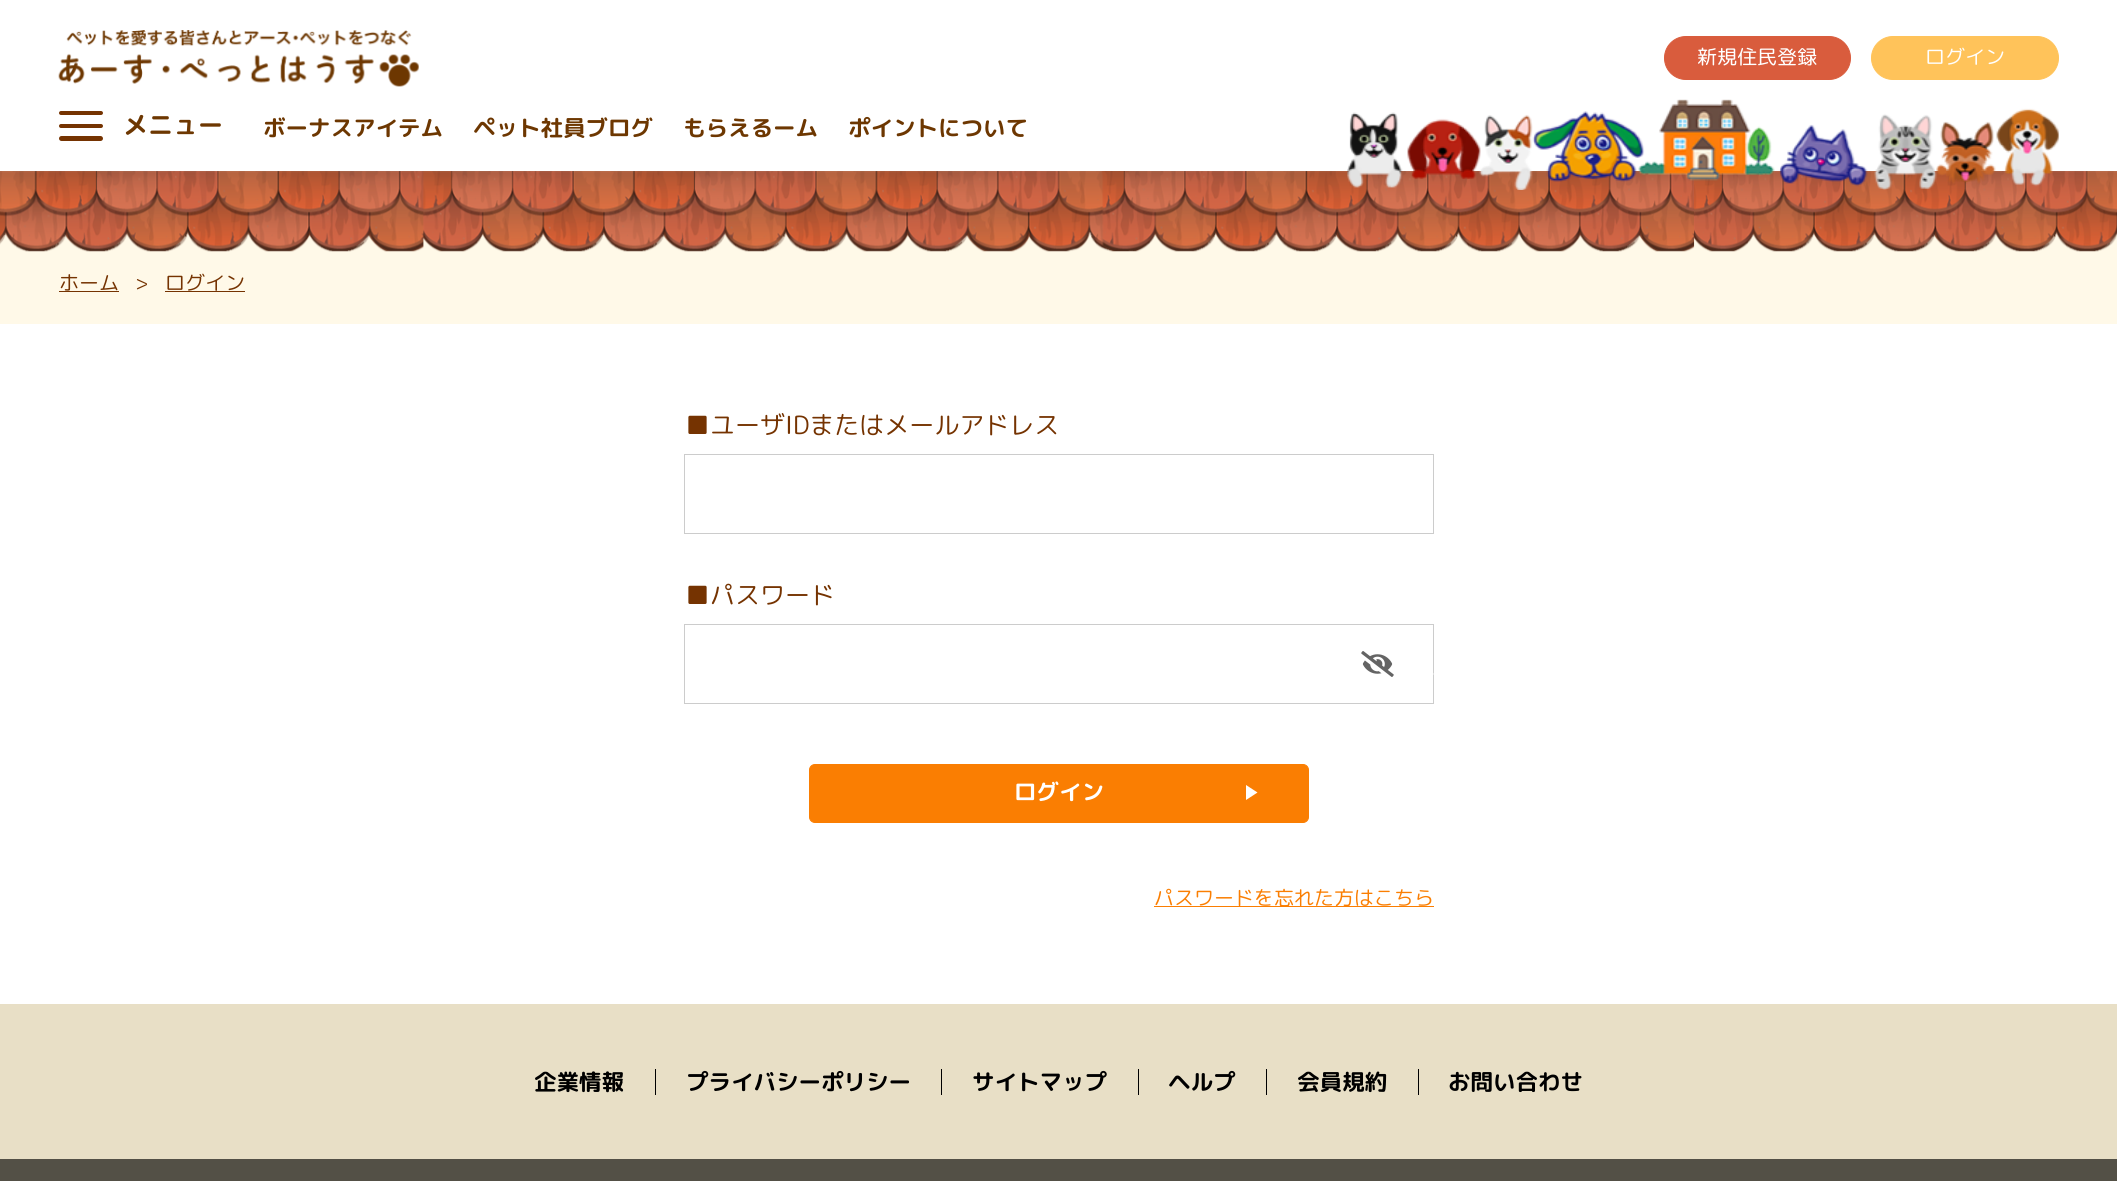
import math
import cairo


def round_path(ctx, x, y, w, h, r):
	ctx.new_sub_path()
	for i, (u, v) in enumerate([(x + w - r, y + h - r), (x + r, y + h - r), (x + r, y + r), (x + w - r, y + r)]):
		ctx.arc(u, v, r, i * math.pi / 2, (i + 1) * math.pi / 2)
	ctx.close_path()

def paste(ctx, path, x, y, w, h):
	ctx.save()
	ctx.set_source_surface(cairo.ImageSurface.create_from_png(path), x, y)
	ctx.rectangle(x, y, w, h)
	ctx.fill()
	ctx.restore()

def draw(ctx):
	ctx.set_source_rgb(1, 1, 1)
	ctx.paint()
	paste(ctx, 'media/1.png', 58, 30, 361, 57)
	ctx.set_source_rgb(0.851, 0.361, 0.239)
	round_path(ctx, 1664.5, 36.5, 186, 43, 21.5)
	ctx.fill_preserve()
	ctx.set_line_width(1)
	ctx.stroke()
	ctx.select_font_face('Rounded Mplus 1c')
	ctx.set_font_size(20)
	ctx.set_source_rgb(1, 1, 1)
	ctx.move_to(1697, 64)
	ctx.show_text('新規住民登録')
	ctx.set_source_rgb(1, 0.765, 0.353)
	round_path(ctx, 1871.5, 36.5, 187, 43, 21.5)
	ctx.fill_preserve()
	ctx.stroke()
	ctx.set_source_rgb(1, 1, 1)
	ctx.move_to(1925, 64)
	ctx.show_text('ログイン')
	ctx.set_source_rgb(0.459, 0.2, 0.004)
	round_path(ctx, 59, 111, 44, 4, 2)
	ctx.fill()
	round_path(ctx, 59, 124, 44, 4, 2)
	ctx.fill()
	ctx.select_font_face('Rounded Mplus 1c Bold', cairo.FONT_SLANT_NORMAL, cairo.FONT_WEIGHT_BOLD)
	ctx.set_font_size(25)
	ctx.set_source_rgb(0.427, 0.216, 0.004)
	ctx.move_to(123, 134)
	ctx.show_text('メニュー')
	ctx.set_source_rgb(0.459, 0.2, 0.004)
	round_path(ctx, 59, 136, 44, 5, 2.5)
	ctx.fill()
	ctx.set_font_size(22.5)
	ctx.set_source_rgb(0.427, 0.216, 0.004)
	for x, y, s in [
		(263, 136, 'ボーナスアイテム'),
		(473, 136, 'ペット社員ブログ'),
		(683, 136, 'もらえるーム'),
		(848, 136, 'ポイントについて'),
	]:
		ctx.move_to(x, y)
		ctx.show_text(s)
	ctx.set_source_rgb(1, 0.976, 0.91)
	ctx.rectangle(0, 171, 2117, 153)
	ctx.fill()
	paste(ctx, 'media/3.png', 0, 171, 2117, 81)
	paste(ctx, 'media/2.png', 1347, 99, 712, 91)
	ctx.rectangle(684.5, 624.5, 749, 79)
	ctx.set_source_rgb(0.8, 0.8, 0.8)
	ctx.stroke()
	ctx.set_source_rgb(1, 1, 1)
	ctx.new_path()
	ctx.move_to(1422.5, 681)
	ctx.line_to(1422.5, 666)
	ctx.line_to(1434, 674)
	ctx.close_path()
	ctx.fill()
	ctx.select_font_face('Rounded Mplus 1c')
	ctx.set_font_size(20)
	ctx.set_source_rgb(0.459, 0.2, 0.004)
	ctx.move_to(59, 290)
	ctx.show_text('ホーム')
	ctx.rectangle(59, 291, 60, 1)
	ctx.fill()
	ctx.move_to(135, 290)
	ctx.show_text('>')
	ctx.move_to(165, 290)
	ctx.show_text('ログイン')
	ctx.rectangle(165, 291, 80, 1)
	ctx.fill()
	ctx.set_font_size(25)
	ctx.move_to(685, 434)
	ctx.show_text('■ユーザIDまたはメールアドレス')
	ctx.rectangle(684.5, 454.5, 749, 79)
	ctx.set_source_rgb(0.8, 0.8, 0.8)
	ctx.stroke()
	ctx.set_source_rgb(0.459, 0.2, 0.004)
	ctx.move_to(685, 604)
	ctx.show_text('■パスワード')
	paste(ctx, 'media/4.png', 1361, 651, 33, 26)
	ctx.set_source_rgb(0.98, 0.494, 0.008)
	round_path(ctx, 809.5, 764.5, 499, 58, 5.5)
	ctx.fill_preserve()
	ctx.stroke()
	ctx.select_font_face('Rounded Mplus 1c Bold', cairo.FONT_SLANT_NORMAL, cairo.FONT_WEIGHT_BOLD)
	ctx.set_font_size(22.5)
	ctx.set_source_rgb(1, 1, 1)
	ctx.move_to(1014, 800)
	ctx.show_text('ログイン')
	ctx.new_path()
	ctx.move_to(1246, 800)
	ctx.line_to(1246, 785)
	ctx.line_to(1257.5, 792.5)
	ctx.close_path()
	ctx.fill()
	ctx.set_source_rgb(0.98, 0.494, 0.008)
	ctx.rectangle(1154, 906, 280, 1)
	ctx.fill()
	ctx.select_font_face('Rounded Mplus 1c')
	ctx.set_font_size(20)
	ctx.move_to(1154, 905)
	ctx.show_text('パスワードを忘れた方はこちら')
	ctx.set_source_rgb(0.91, 0.875, 0.776)
	ctx.rectangle(0, 1004, 2117, 155)
	ctx.fill()
	ctx.select_font_face('Rounded Mplus 1c Bold', cairo.FONT_SLANT_NORMAL, cairo.FONT_WEIGHT_BOLD)
	ctx.set_font_size(22.5)
	ctx.set_source_rgb(0, 0, 0)
	ctx.move_to(534, 1090)
	ctx.show_text('企業情報')
	ctx.rectangle(655, 1069, 1, 26)
	ctx.fill()
	ctx.move_to(686, 1090)
	ctx.show_text('プライバシーポリシー')
	ctx.rectangle(941, 1069, 1, 26)
	ctx.fill()
	ctx.move_to(972, 1090)
	ctx.show_text('サイトマップ')
	ctx.rectangle(1138, 1069, 1, 26)
	ctx.fill()
	ctx.move_to(1168, 1090)
	ctx.show_text('ヘルプ')
	ctx.rectangle(1266, 1069, 1, 26)
	ctx.fill()
	ctx.move_to(1297, 1090)
	ctx.show_text('会員規約')
	ctx.rectangle(1418, 1069, 1, 26)
	ctx.fill()
	ctx.move_to(1448, 1090)
	ctx.show_text('お問い合わせ')
	ctx.set_source_rgb(0.325, 0.314, 0.275)
	ctx.rectangle(0, 1159, 2117, 22)
	ctx.fill()


surface = cairo.ImageSurface(cairo.FORMAT_RGB24, 2117, 1181)
ctx = cairo.Context(surface)
options = cairo.FontOptions()
options.set_hint_metrics(cairo.HINT_METRICS_OFF)
options.set_hint_style(cairo.HINT_STYLE_NONE)
ctx.set_font_options(options)
ctx.set_miter_limit(4)
draw(ctx)
surface.write_to_png('image.png')
